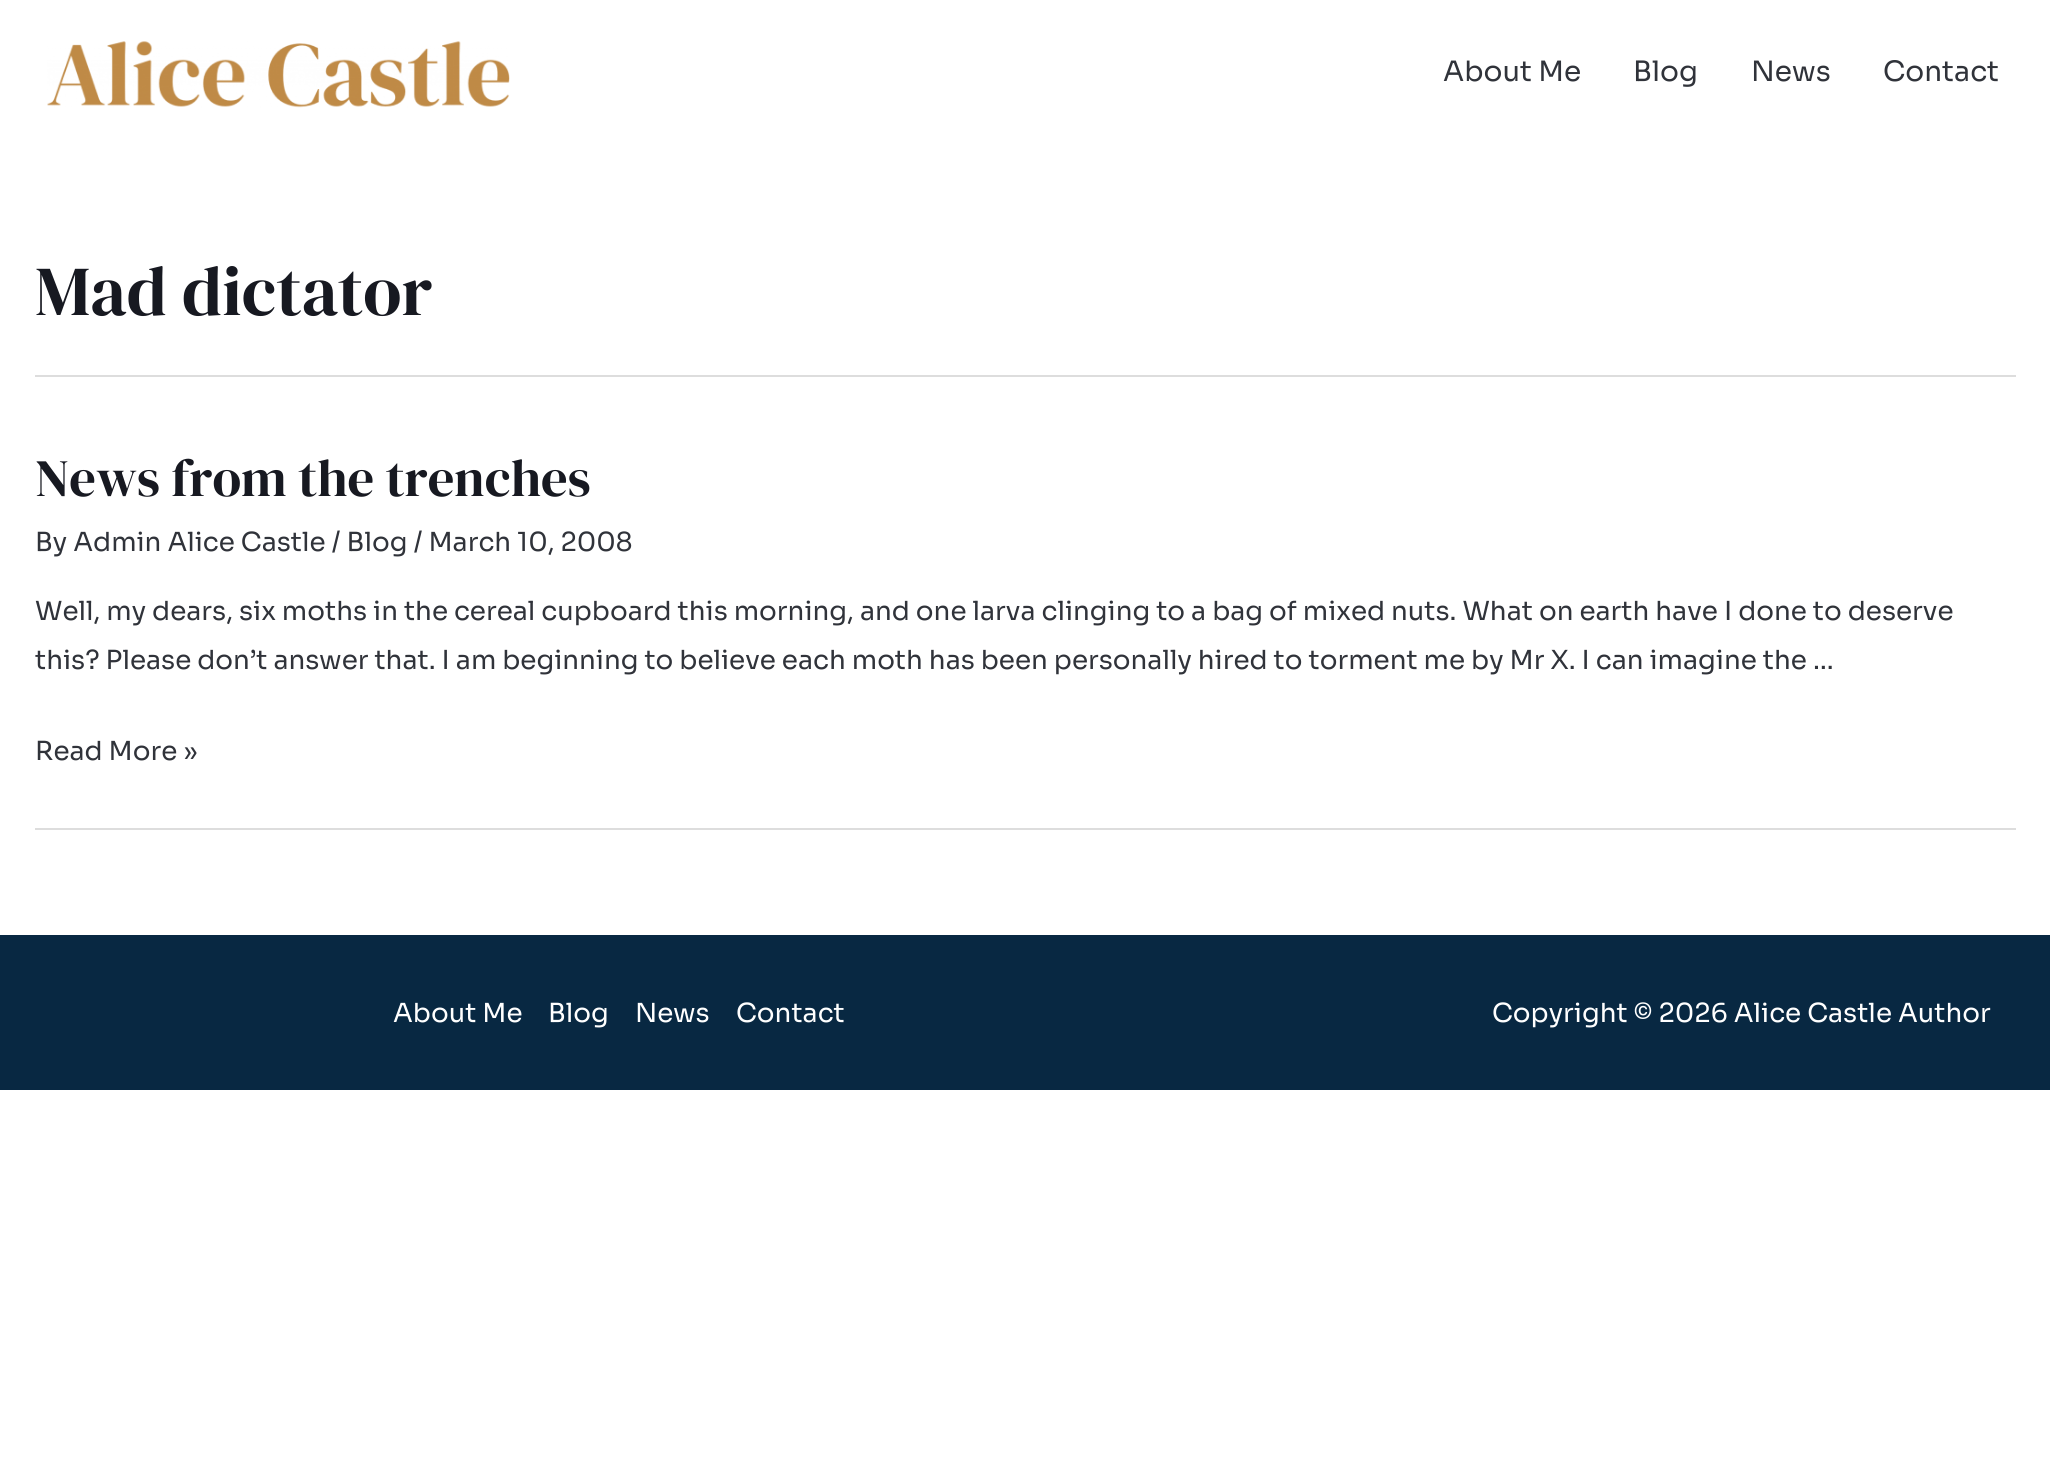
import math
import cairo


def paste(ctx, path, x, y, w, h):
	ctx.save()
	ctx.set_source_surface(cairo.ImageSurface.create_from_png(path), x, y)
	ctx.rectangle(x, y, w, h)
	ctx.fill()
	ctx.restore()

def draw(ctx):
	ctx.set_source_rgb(1, 1, 1)
	ctx.paint()
	paste(ctx, 'media/1.png', 47, 41, 463, 67)
	ctx.select_font_face('Sora')
	ctx.set_font_size(28)
	ctx.set_source_rgb(0.188, 0.2, 0.227)
	for x, y, s in [
		(1443, 81, 'About Me'),
		(1633, 81, 'Blog'),
		(1751, 81, 'News'),
		(1883, 81, 'Contact'),
	]:
		ctx.move_to(x, y)
		ctx.show_text(s)
	ctx.set_source_rgb(0.867, 0.867, 0.867)
	ctx.rectangle(35, 375, 1981, 2)
	ctx.fill()
	ctx.select_font_face('DM Serif Display')
	ctx.set_font_size(70)
	ctx.set_source_rgb(0.09, 0.098, 0.129)
	ctx.move_to(35, 315)
	ctx.show_text('Mad dictator')
	ctx.set_source_rgb(0.867, 0.867, 0.867)
	ctx.rectangle(35, 828, 1981, 2)
	ctx.fill()
	ctx.set_font_size(52.5)
	ctx.set_source_rgb(0.09, 0.098, 0.129)
	ctx.move_to(35, 496)
	ctx.show_text('News from the trenches')
	ctx.select_font_face('Sora')
	ctx.set_font_size(26.25)
	ctx.set_source_rgb(0.188, 0.2, 0.227)
	for x, y, s in [
		(35, 551, 'By Admin Alice Castle / Blog / March 10, 2008'),
		(35, 620, 'Well, my dears, six moths in the cereal cupboard this morning, and one larva clinging to a bag of mixed nuts. What on earth have I done to deserve'),
		(35, 669, 'this? Please don’t answer that. I am beginning to believe each moth has been personally hired to torment me by Mr X. I can imagine the …'),
		(35, 760, 'Read More »'),
	]:
		ctx.move_to(x, y)
		ctx.show_text(s)
	ctx.set_source_rgb(0.035, 0.157, 0.259)
	ctx.rectangle(0, 935, 2050, 155)
	ctx.fill()
	ctx.set_source_rgb(1, 1, 1)
	for x, y, s in [
		(393, 1022, 'About Me'),
		(548, 1022, 'Blog'),
		(635, 1022, 'News'),
		(736, 1022, 'Contact'),
		(1492, 1022, 'Copyright © 2026 Alice Castle Author'),
	]:
		ctx.move_to(x, y)
		ctx.show_text(s)


surface = cairo.ImageSurface(cairo.FORMAT_RGB24, 2050, 1457)
ctx = cairo.Context(surface)
options = cairo.FontOptions()
options.set_hint_metrics(cairo.HINT_METRICS_OFF)
options.set_hint_style(cairo.HINT_STYLE_NONE)
ctx.set_font_options(options)
ctx.set_miter_limit(4)
draw(ctx)
surface.write_to_png('image.png')
